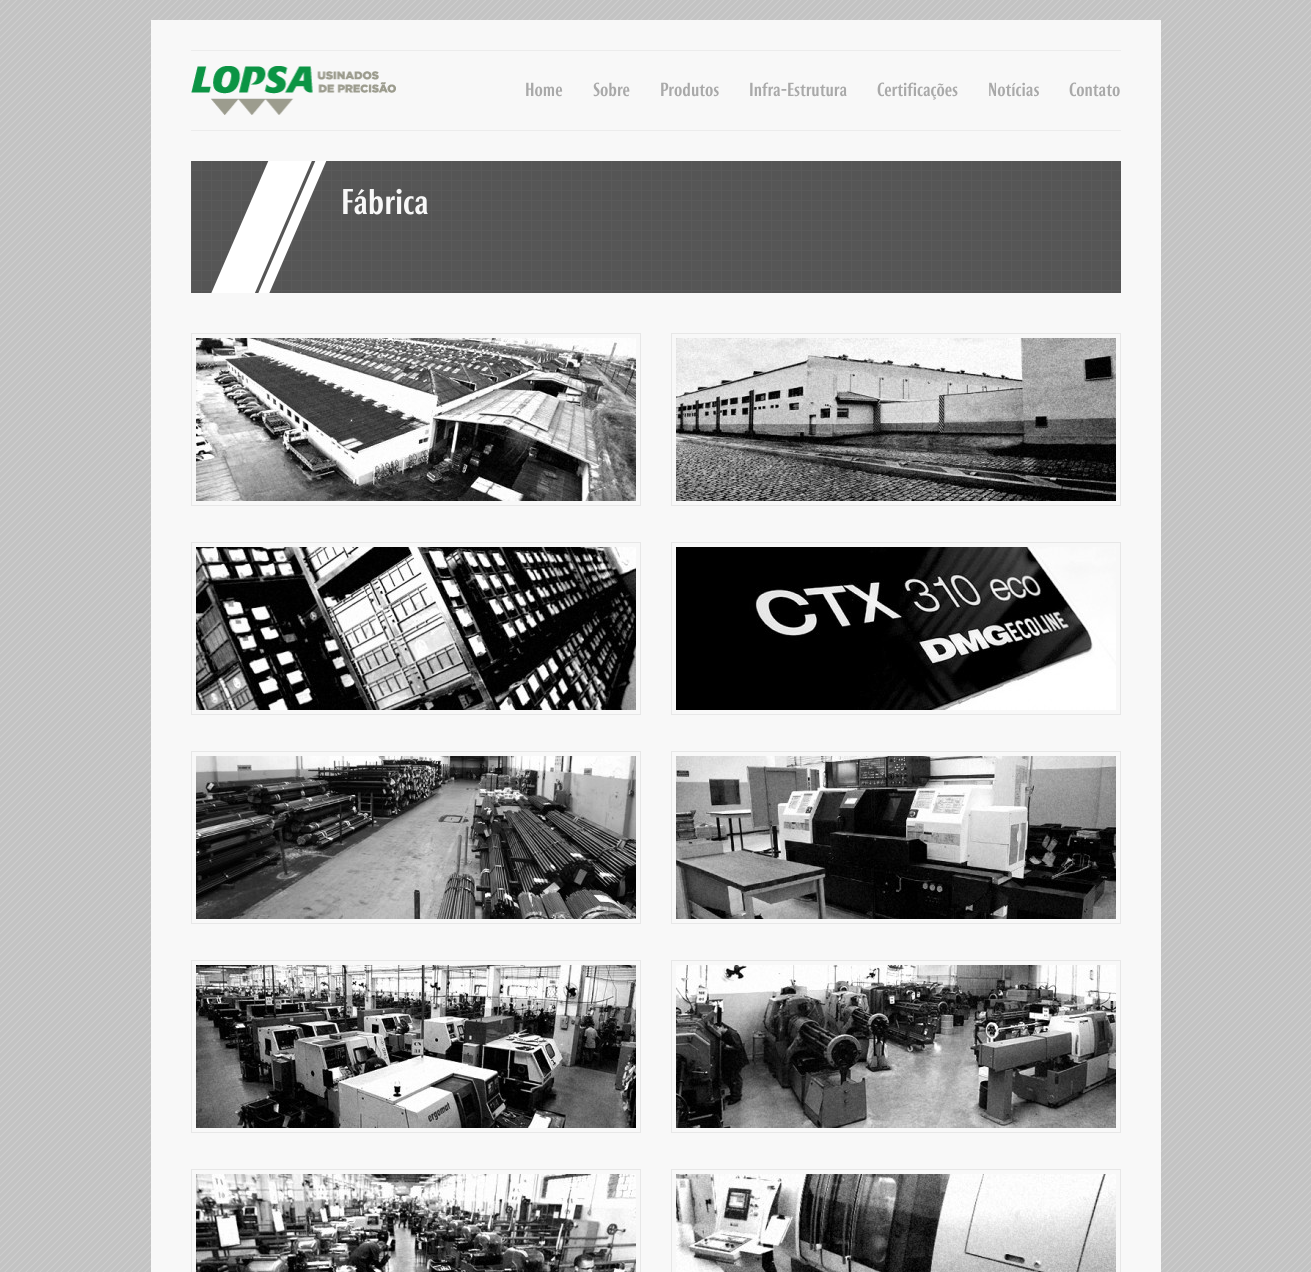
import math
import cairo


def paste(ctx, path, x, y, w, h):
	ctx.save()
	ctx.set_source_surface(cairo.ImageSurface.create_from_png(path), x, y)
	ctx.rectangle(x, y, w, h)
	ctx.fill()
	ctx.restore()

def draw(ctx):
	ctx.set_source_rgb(0.765, 0.765, 0.765)
	ctx.paint()
	paste(ctx, 'media/1.png', 0, 0, 1311, 1272)
	ctx.set_source_rgb(0.969, 0.969, 0.969)
	ctx.rectangle(151, 20, 1010, 1252)
	ctx.fill()
	ctx.set_source_rgb(0.922, 0.922, 0.922)
	ctx.rectangle(191, 50, 930, 1)
	ctx.rectangle(191, 130, 930, 1)
	ctx.fill()
	paste(ctx, 'media/2.png', 191, 66, 205, 49)
	ctx.select_font_face('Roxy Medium')
	ctx.set_font_size(18)
	ctx.set_source_rgb(0.663, 0.663, 0.663)
	for x, y, s in [
		(525, 96, 'Home'),
		(593, 96, 'Sobre'),
		(660, 96, 'Produtos'),
		(749, 96, 'Infra-Estrutura'),
		(877, 96, 'Certificações'),
		(988, 96, 'Notícias'),
		(1069, 96, 'Contato'),
	]:
		ctx.move_to(x, y)
		ctx.show_text(s)
	ctx.set_source_rgb(0.333, 0.333, 0.333)
	ctx.rectangle(191, 161, 930, 132)
	ctx.fill()
	paste(ctx, 'media/3.png', 191, 161, 930, 132)
	paste(ctx, 'media/4.png', 211, 161, 116, 132)
	ctx.set_font_size(34)
	ctx.set_source_rgb(0.969, 0.969, 0.969)
	ctx.move_to(341, 214)
	ctx.show_text('Fábrica')
	ctx.rectangle(191.5, 333.5, 449, 172)
	ctx.set_source_rgb(0.906, 0.906, 0.906)
	ctx.set_line_width(1)
	ctx.stroke()
	paste(ctx, 'media/5.png', 196, 338, 440, 163)
	ctx.rectangle(671.5, 333.5, 449, 172)
	ctx.stroke()
	paste(ctx, 'media/6.png', 676, 338, 440, 163)
	ctx.rectangle(191.5, 542.5, 449, 172)
	ctx.stroke()
	paste(ctx, 'media/7.png', 196, 547, 440, 163)
	ctx.rectangle(671.5, 542.5, 449, 172)
	ctx.stroke()
	paste(ctx, 'media/8.png', 676, 547, 440, 163)
	ctx.rectangle(191.5, 751.5, 449, 172)
	ctx.stroke()
	paste(ctx, 'media/9.png', 196, 756, 440, 163)
	ctx.rectangle(671.5, 751.5, 449, 172)
	ctx.stroke()
	paste(ctx, 'media/10.png', 676, 756, 440, 163)
	ctx.rectangle(191.5, 960.5, 449, 172)
	ctx.stroke()
	paste(ctx, 'media/11.png', 196, 965, 440, 163)
	ctx.rectangle(671.5, 960.5, 449, 172)
	ctx.stroke()
	paste(ctx, 'media/12.png', 676, 965, 440, 163)
	ctx.rectangle(191.5, 1169.5, 449, 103)
	ctx.stroke()
	paste(ctx, 'media/13.png', 196, 1174, 440, 98)
	ctx.rectangle(671.5, 1169.5, 449, 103)
	ctx.stroke()
	paste(ctx, 'media/14.png', 676, 1174, 440, 98)


surface = cairo.ImageSurface(cairo.FORMAT_RGB24, 1311, 1272)
ctx = cairo.Context(surface)
options = cairo.FontOptions()
options.set_hint_metrics(cairo.HINT_METRICS_OFF)
options.set_hint_style(cairo.HINT_STYLE_NONE)
ctx.set_font_options(options)
ctx.set_miter_limit(4)
draw(ctx)
surface.write_to_png('image.png')
